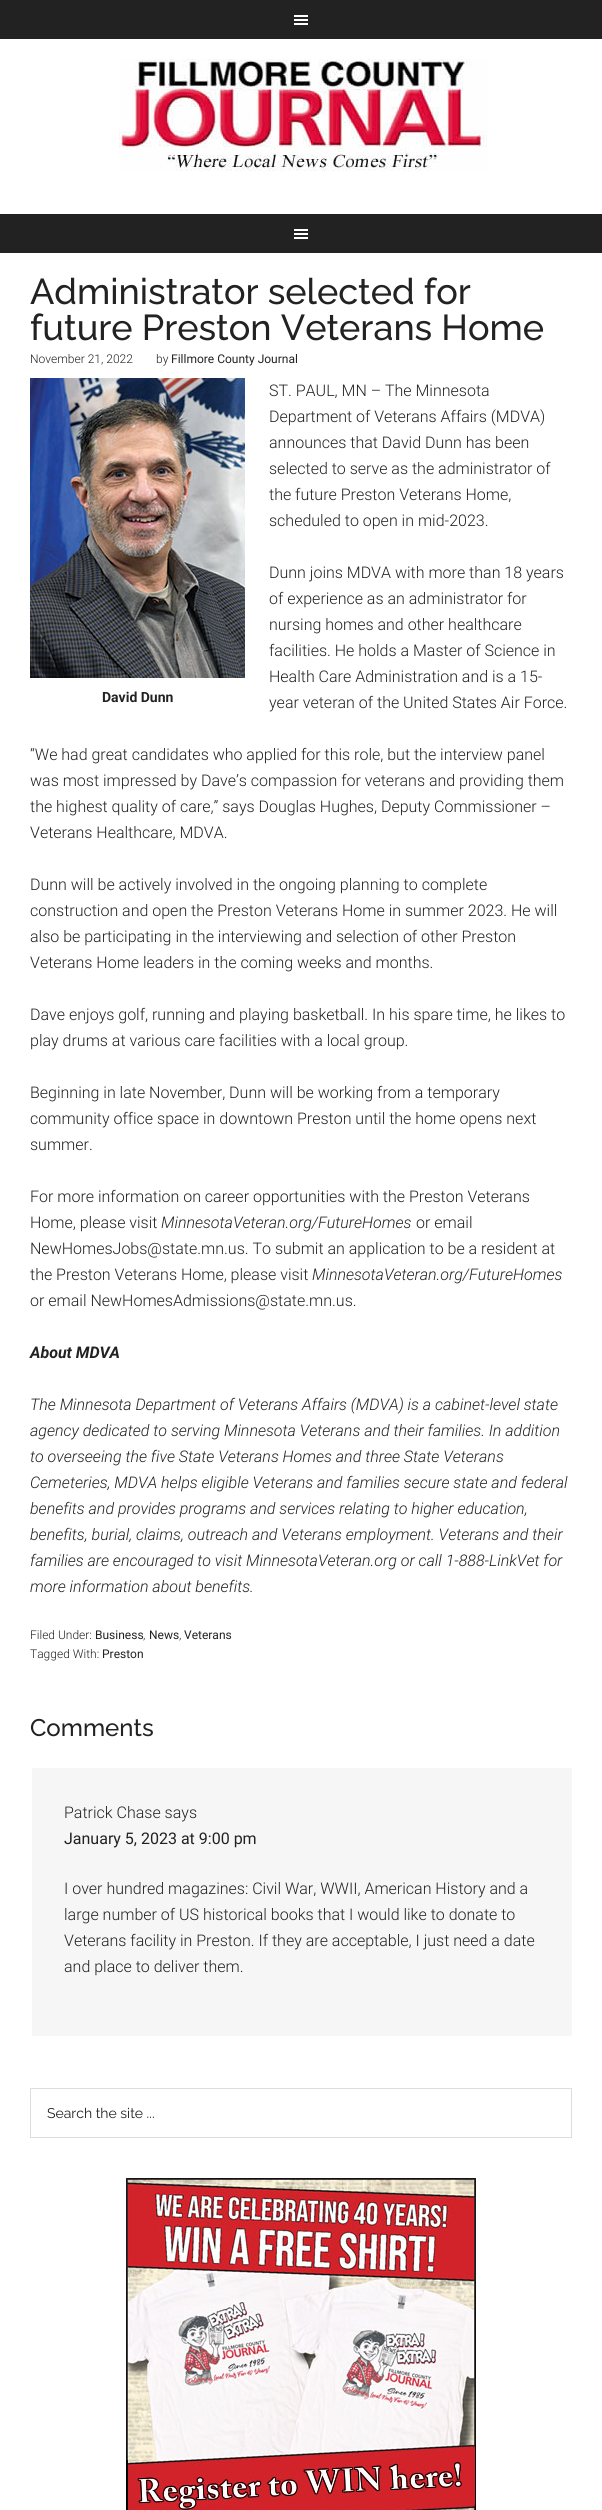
import math
import cairo


def paste(ctx, path, x, y, w, h):
	ctx.save()
	ctx.set_source_surface(cairo.ImageSurface.create_from_png(path), x, y)
	ctx.rectangle(x, y, w, h)
	ctx.fill()
	ctx.restore()

def draw(ctx):
	ctx.set_source_rgb(1, 1, 1)
	ctx.paint()
	ctx.set_source_rgb(0.133, 0.133, 0.133)
	ctx.rectangle(0, 0, 602, 39)
	ctx.fill()
	paste(ctx, 'media/1.png', 294, 15, 14, 10)
	paste(ctx, 'media/2.png', 119, 59, 368, 112)
	ctx.rectangle(0, 214, 602, 39)
	ctx.fill()
	paste(ctx, 'media/1.png', 294, 229, 14, 10)
	ctx.select_font_face('Raleway Medium')
	ctx.set_font_size(36)
	ctx.move_to(30, 304)
	ctx.show_text('Administrator selected for')
	ctx.move_to(30, 340)
	ctx.show_text('future Preston Veterans Home')
	ctx.select_font_face('Roboto Light')
	ctx.set_font_size(12)
	ctx.move_to(30, 363)
	ctx.show_text('November 21, 2022')
	ctx.move_to(156, 363)
	ctx.show_text('by')
	ctx.select_font_face('Roboto')
	ctx.move_to(171, 363)
	ctx.show_text('Fillmore County Journal')
	ctx.select_font_face('Roboto Light')
	ctx.set_font_size(16)
	for x, y, s in [
		(269, 396, 'ST. PAUL, MN – The Minnesota'),
		(269, 422, 'Department of Veterans Affairs (MDVA)'),
		(269, 448, 'announces that David Dunn has been'),
		(269, 474, 'selected to serve as the administrator of'),
		(269, 500, 'the future Preston Veterans Home,'),
		(269, 526, 'scheduled to open in mid-2023.'),
	]:
		ctx.move_to(x, y)
		ctx.show_text(s)
	paste(ctx, 'media/3.png', 30, 378, 215, 300)
	ctx.select_font_face('Roboto', cairo.FONT_SLANT_NORMAL, cairo.FONT_WEIGHT_BOLD)
	ctx.set_font_size(14)
	ctx.move_to(102, 702)
	ctx.show_text('David Dunn')
	ctx.select_font_face('Roboto Light')
	ctx.set_font_size(16)
	for x, y, s in [
		(269, 578, 'Dunn joins MDVA with more than 18 years'),
		(269, 604, 'of experience as an administrator for'),
		(269, 630, 'nursing homes and other healthcare'),
		(269, 656, 'facilities. He holds a Master of Science in'),
		(269, 682, 'Health Care Administration and is a 15-'),
		(269, 708, 'year veteran of the United States Air Force.'),
		(30, 760, '“We had great candidates who applied for this role, but the interview panel'),
		(30, 786, 'was most impressed by Dave’s compassion for veterans and providing them'),
		(30, 812, 'the highest quality of care,” says Douglas Hughes, Deputy Commissioner –'),
		(30, 838, 'Veterans Healthcare, MDVA.'),
		(30, 890, 'Dunn will be actively involved in the ongoing planning to complete'),
		(30, 916, 'construction and open the Preston Veterans Home in summer 2023. He will'),
		(30, 942, 'also be participating in the interviewing and selection of other Preston'),
		(30, 968, 'Veterans Home leaders in the coming weeks and months.'),
		(30, 1020, 'Dave enjoys golf, running and playing basketball. In his spare time, he likes to'),
		(30, 1046, 'play drums at various care facilities with a local group.'),
		(30, 1098, 'Beginning in late November, Dunn will be working from a temporary'),
		(30, 1124, 'community office space in downtown Preston until the home opens next'),
		(30, 1150, 'summer.'),
		(30, 1202, 'For more information on career opportunities with the Preston Veterans'),
		(30, 1228, 'Home, please visit'),
	]:
		ctx.move_to(x, y)
		ctx.show_text(s)
	ctx.select_font_face('Roboto Light', cairo.FONT_SLANT_ITALIC)
	ctx.move_to(161, 1228)
	ctx.show_text('MinnesotaVeteran.org/FutureHomes')
	ctx.select_font_face('Roboto Light')
	for x, y, s in [
		(416, 1228, 'or email'),
		(30, 1254, 'NewHomesJobs@state.mn.us. To submit an application to be a resident at'),
		(30, 1280, 'the Preston Veterans Home, please visit'),
	]:
		ctx.move_to(x, y)
		ctx.show_text(s)
	ctx.select_font_face('Roboto Light', cairo.FONT_SLANT_ITALIC)
	ctx.move_to(312, 1280)
	ctx.show_text('MinnesotaVeteran.org/FutureHomes')
	ctx.select_font_face('Roboto Light')
	ctx.move_to(30, 1306)
	ctx.show_text('or email NewHomesAdmissions@state.mn.us.')
	ctx.select_font_face('Roboto', cairo.FONT_SLANT_ITALIC, cairo.FONT_WEIGHT_BOLD)
	ctx.move_to(30, 1358)
	ctx.show_text('About MDVA')
	ctx.select_font_face('Roboto Light', cairo.FONT_SLANT_ITALIC)
	for x, y, s in [
		(30, 1410, 'The Minnesota Department of Veterans Affairs (MDVA) is a cabinet-level state'),
		(30, 1436, 'agency dedicated to serving Minnesota Veterans and their families. In addition'),
		(30, 1462, 'to overseeing the five State Veterans Homes and three State Veterans'),
		(30, 1488, 'Cemeteries, MDVA helps eligible Veterans and families secure state and federal'),
		(30, 1514, 'benefits and provides programs and services relating to higher education,'),
		(30, 1540, 'benefits, burial, claims, outreach and Veterans employment. Veterans and their'),
		(30, 1566, 'families are encouraged to visit MinnesotaVeteran.org or call 1-888-LinkVet for'),
		(30, 1592, 'more information about benefits.'),
	]:
		ctx.move_to(x, y)
		ctx.show_text(s)
	ctx.select_font_face('Roboto Light')
	ctx.set_font_size(12)
	ctx.move_to(30, 1639)
	ctx.show_text('Filed Under:')
	ctx.select_font_face('Roboto')
	ctx.move_to(95, 1639)
	ctx.show_text('Business')
	ctx.select_font_face('Roboto Light')
	ctx.move_to(143, 1639)
	ctx.show_text(',')
	ctx.select_font_face('Roboto')
	ctx.move_to(149, 1639)
	ctx.show_text('News')
	ctx.select_font_face('Roboto Light')
	ctx.move_to(179, 1639)
	ctx.show_text(',')
	ctx.select_font_face('Roboto')
	ctx.move_to(184, 1639)
	ctx.show_text('Veterans')
	ctx.select_font_face('Roboto Light')
	ctx.move_to(30, 1658)
	ctx.show_text('Tagged With:')
	ctx.select_font_face('Roboto')
	ctx.move_to(102, 1658)
	ctx.show_text('Preston')
	ctx.select_font_face('Raleway Medium')
	ctx.set_font_size(24)
	ctx.move_to(30, 1736)
	ctx.show_text('Comments')
	ctx.set_source_rgb(0.961, 0.961, 0.961)
	ctx.rectangle(32, 1768, 540, 268)
	ctx.fill()
	ctx.select_font_face('Roboto Light')
	ctx.set_font_size(16)
	ctx.set_source_rgb(0.133, 0.133, 0.133)
	ctx.move_to(64, 1818)
	ctx.show_text('Patrick Chase says')
	ctx.select_font_face('Roboto')
	ctx.move_to(64, 1844)
	ctx.show_text('January 5, 2023 at 9:00 pm')
	ctx.select_font_face('Roboto Light')
	for x, y, s in [
		(64, 1894, 'I over hundred magazines: Civil War, WWII, American History and a'),
		(64, 1920, 'large number of US historical books that I would like to donate to'),
		(64, 1946, 'Veterans facility in Preston. If they are acceptable, I just need a date'),
		(64, 1972, 'and place to deliver them.'),
	]:
		ctx.move_to(x, y)
		ctx.show_text(s)
	ctx.rectangle(30.5, 2088.5, 541, 49)
	ctx.set_source_rgb(0.867, 0.867, 0.867)
	ctx.set_line_width(1)
	ctx.stroke()
	ctx.select_font_face('Raleway')
	ctx.set_font_size(14)
	ctx.set_source_rgb(0.133, 0.133, 0.133)
	ctx.move_to(47, 2118)
	ctx.show_text('Search the site ...')
	paste(ctx, 'media/4.png', 126, 2178, 350, 332)


surface = cairo.ImageSurface(cairo.FORMAT_RGB24, 602, 2510)
ctx = cairo.Context(surface)
options = cairo.FontOptions()
options.set_hint_metrics(cairo.HINT_METRICS_OFF)
options.set_hint_style(cairo.HINT_STYLE_NONE)
ctx.set_font_options(options)
ctx.set_miter_limit(4)
draw(ctx)
surface.write_to_png('image.png')
